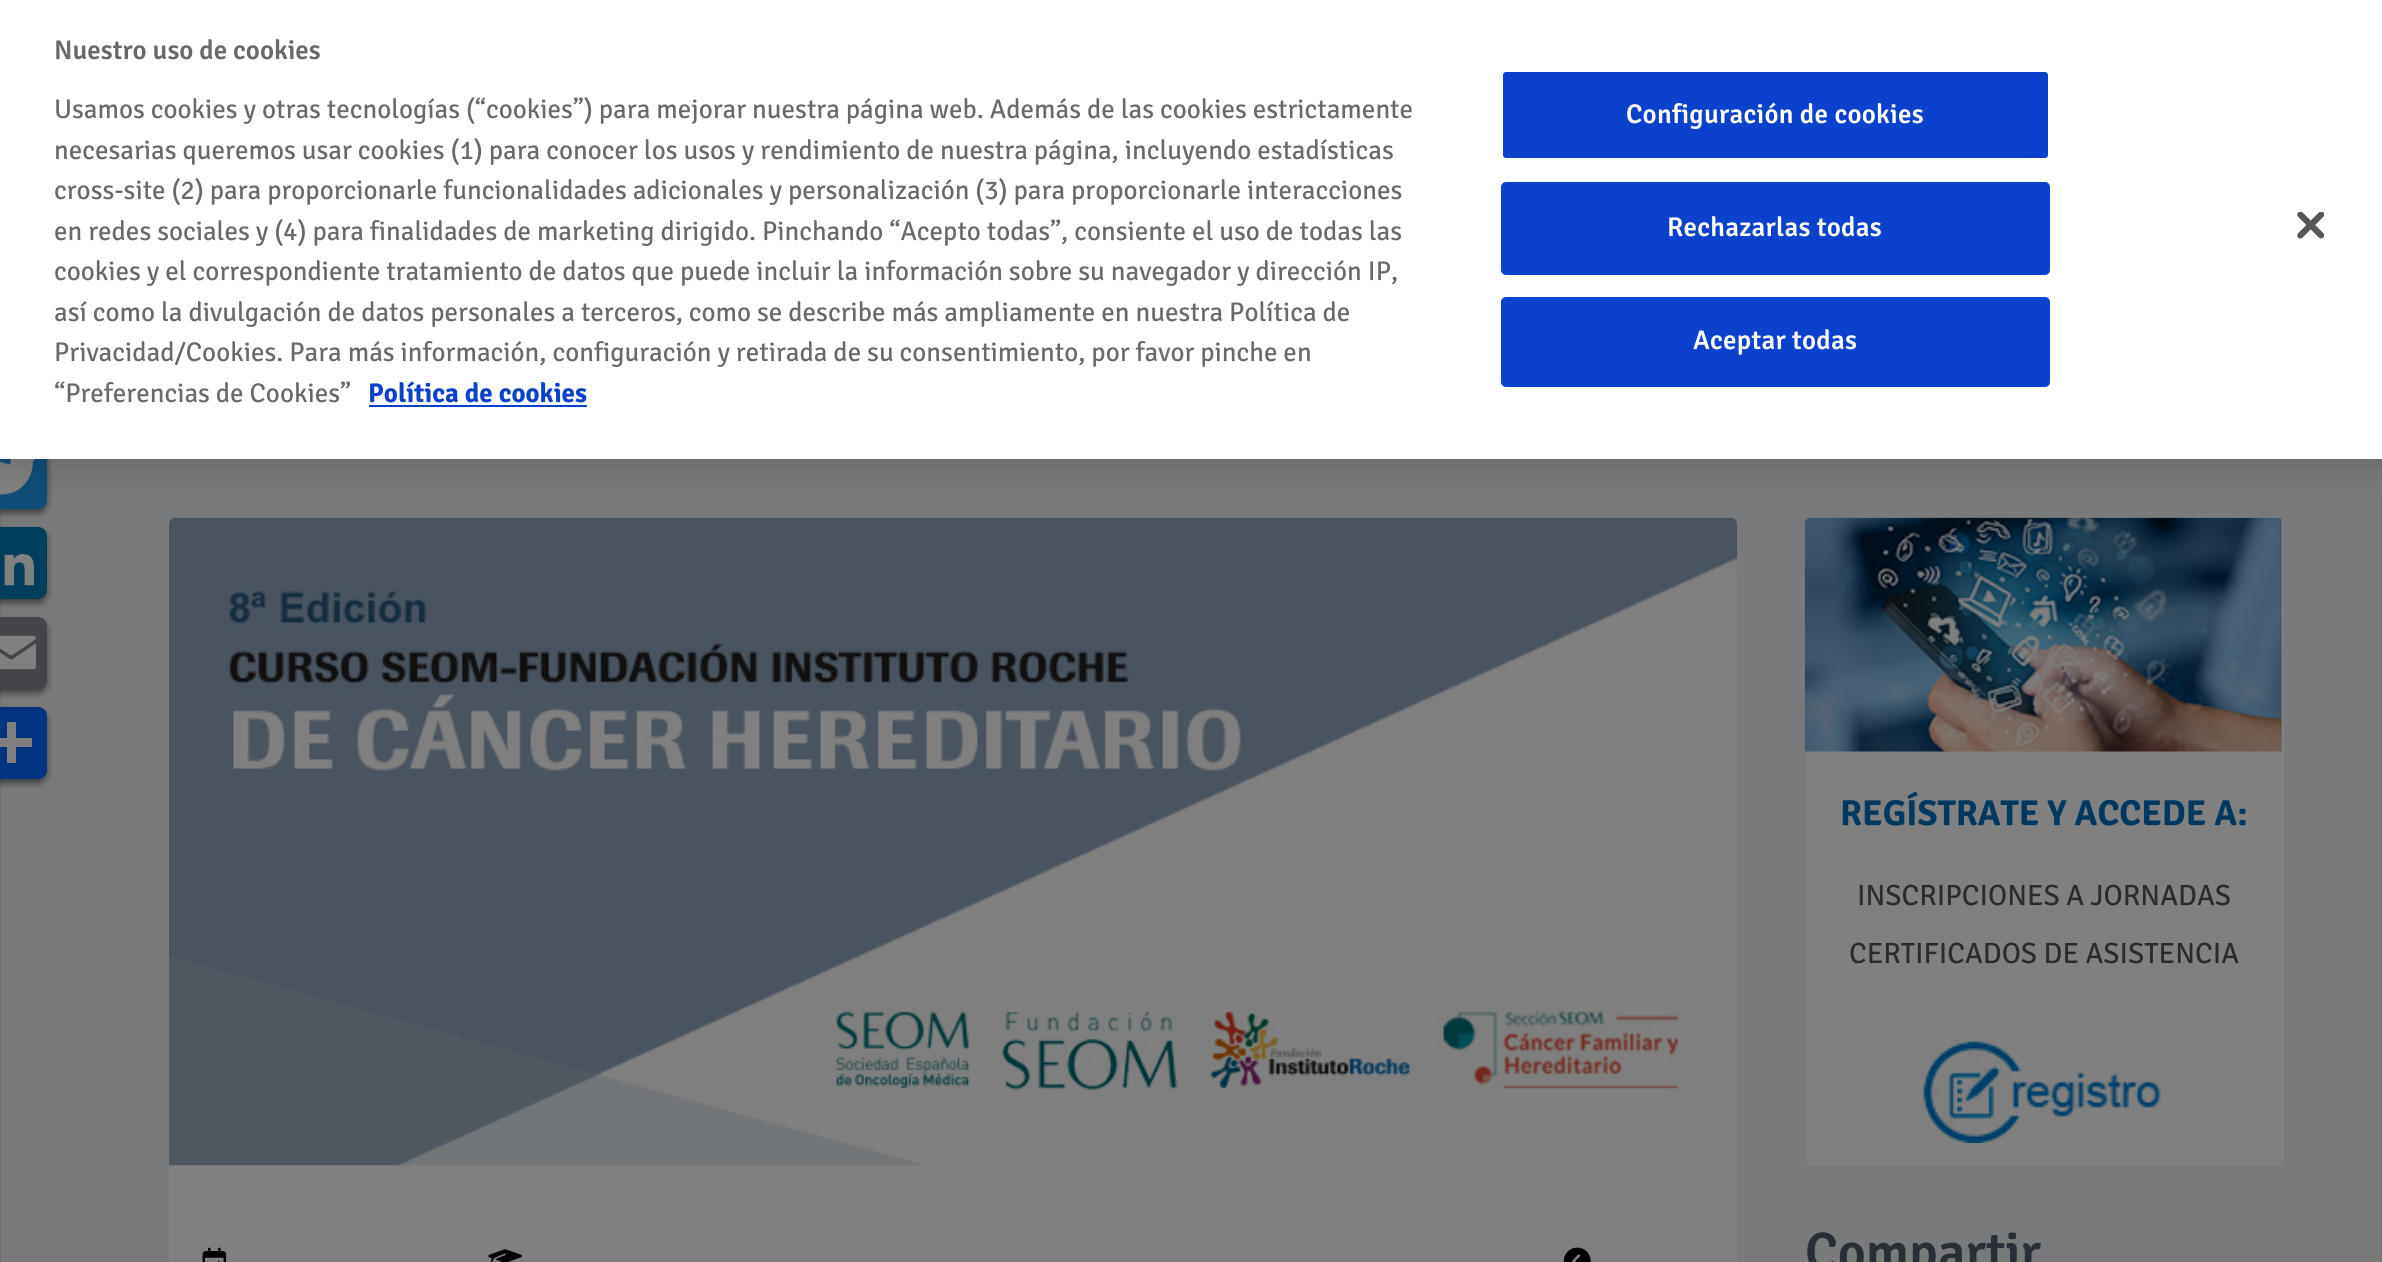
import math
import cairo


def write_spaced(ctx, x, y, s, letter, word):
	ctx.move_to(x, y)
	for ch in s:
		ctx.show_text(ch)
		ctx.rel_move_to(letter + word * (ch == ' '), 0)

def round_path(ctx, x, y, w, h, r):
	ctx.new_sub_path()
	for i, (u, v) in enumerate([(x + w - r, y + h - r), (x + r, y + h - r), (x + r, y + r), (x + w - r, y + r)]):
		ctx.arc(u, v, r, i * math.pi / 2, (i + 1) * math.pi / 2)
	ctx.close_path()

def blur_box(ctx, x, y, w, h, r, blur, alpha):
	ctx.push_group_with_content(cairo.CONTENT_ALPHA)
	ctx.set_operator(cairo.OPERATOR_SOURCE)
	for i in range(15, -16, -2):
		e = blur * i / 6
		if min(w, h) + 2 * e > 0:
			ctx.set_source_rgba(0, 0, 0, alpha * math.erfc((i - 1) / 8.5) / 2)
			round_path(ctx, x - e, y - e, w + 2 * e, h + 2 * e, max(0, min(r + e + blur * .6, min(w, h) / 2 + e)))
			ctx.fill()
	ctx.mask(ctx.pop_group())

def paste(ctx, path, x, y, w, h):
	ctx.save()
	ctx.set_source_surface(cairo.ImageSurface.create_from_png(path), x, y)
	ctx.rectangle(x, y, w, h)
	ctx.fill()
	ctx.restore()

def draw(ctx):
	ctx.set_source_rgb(0.475, 0.478, 0.482)
	ctx.paint()
	ctx.set_source_rgb(0.447, 0.447, 0.447)
	ctx.rectangle(2381, 459, 1, 803)
	ctx.fill()
	ctx.rectangle(0, 509, 2, 753)
	ctx.fill()
	ctx.set_source_rgb(0, 0, 0)
	blur_box(ctx, -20, 441, 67, 72, 9, 3.5, 0.5)
	ctx.set_source_rgb(0.059, 0.306, 0.471)
	round_path(ctx, -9, 437, 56, 72, 9)
	ctx.fill()
	paste(ctx, 'media/2.png', 0, 459, 36, 36)
	ctx.set_source_rgb(0.502, 0.502, 0.502)
	round_path(ctx, 169, 518, 1568, 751, 7)
	ctx.fill()
	paste(ctx, 'media/5.png', 169, 517, 1568, 649)
	round_path(ctx, 1805, 518, 479, 648, 7)
	ctx.fill()
	paste(ctx, 'media/9.png', 1804, 517, 478, 235)
	ctx.set_source_rgb(0, 0, 0)
	blur_box(ctx, 0, 0, 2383, 459, 0, 20, 0.2)
	ctx.set_source_rgb(1, 1, 1)
	ctx.rectangle(0, 0, 2382, 459)
	ctx.fill()
	ctx.select_font_face('Signika Negative SemiBold')
	ctx.set_font_size(27)
	ctx.set_source_rgb(0.412, 0.412, 0.412)
	ctx.move_to(54, 59)
	ctx.show_text('Nuestro uso de cookies')
	ctx.select_font_face('Signika Negative')
	for x, y, s in [
		(54, 118, 'Usamos cookies y otras tecnologías (“cookies”) para mejorar nuestra página web. Además de las cookies estrictamente'),
		(54, 159, 'necesarias queremos usar cookies (1) para conocer los usos y rendimiento de nuestra página, incluyendo estadísticas'),
		(54, 199, 'cross-site (2) para proporcionarle funcionalidades adicionales y personalización (3) para proporcionarle interacciones'),
		(54, 240, 'en redes sociales y (4) para finalidades de marketing dirigido. Pinchando “Acepto todas”, consiente el uso de todas las'),
		(54, 280, 'cookies y el correspondiente tratamiento de datos que puede incluir la información sobre su navegador y dirección IP,'),
		(54, 321, 'así como la divulgación de datos personales a terceros, como se describe más ampliamente en nuestra Política de'),
		(54, 361, 'Privacidad/Cookies. Para más información, configuración y retirada de su consentimiento, por favor pinche en'),
		(54, 402, '“Preferencias de Cookies”'),
	]:
		ctx.move_to(x, y)
		ctx.show_text(s)
	ctx.select_font_face('Signika Negative', cairo.FONT_SLANT_NORMAL, cairo.FONT_WEIGHT_BOLD)
	ctx.set_source_rgb(0.043, 0.255, 0.804)
	ctx.move_to(368, 402)
	ctx.show_text('Política de cookies')
	ctx.rectangle(369, 405, 218, 2)
	ctx.fill()
	round_path(ctx, 1502, 71, 547, 88, 4)
	ctx.fill_preserve()
	ctx.set_source_rgb(1, 1, 1)
	ctx.stroke()
	ctx.select_font_face('Signika Negative SemiBold')
	write_spaced(ctx, 1626, 123, 'Configuración de cookies', 0.25, 0)
	ctx.set_source_rgb(0.043, 0.255, 0.804)
	round_path(ctx, 1502, 183, 547, 91, 4)
	ctx.fill_preserve()
	ctx.stroke()
	ctx.set_source_rgb(1, 1, 1)
	write_spaced(ctx, 1667, 236, 'Rechazarlas todas', 0.25, 0)
	ctx.set_source_rgb(0.043, 0.255, 0.804)
	round_path(ctx, 1502, 298, 547, 88, 4)
	ctx.fill_preserve()
	ctx.stroke()
	ctx.set_source_rgb(1, 1, 1)
	write_spaced(ctx, 1693, 349, 'Aceptar todas', 0.25, 0)
	paste(ctx, 'media/1.png', 2297, 212, 27, 27)
	ctx.set_source_rgb(0, 0, 0)
	blur_box(ctx, -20, 531, 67, 72, 9, 3.5, 0.5)
	ctx.set_source_rgb(0, 0.243, 0.357)
	round_path(ctx, -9, 527, 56, 72, 9)
	ctx.fill()
	paste(ctx, 'media/3.png', 4, 554, 30, 32)
	ctx.set_source_rgb(0, 0, 0)
	blur_box(ctx, -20, 621, 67, 72, 9, 3.5, 0.5)
	ctx.set_source_rgb(0.267, 0.271, 0.282)
	round_path(ctx, -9, 617, 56, 72, 9)
	ctx.fill()
	paste(ctx, 'media/4.png', 0, 635, 36, 35)
	ctx.set_source_rgb(0, 0, 0)
	blur_box(ctx, -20, 711, 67, 72, 9, 3.5, 0.5)
	ctx.set_source_rgb(0.004, 0.2, 0.502)
	round_path(ctx, -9, 707, 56, 72, 9)
	ctx.fill()
	ctx.set_source_rgb(0.502, 0.502, 0.502)
	ctx.rectangle(7, 722, 9, 41)
	ctx.fill()
	ctx.rectangle(0, 738, 32, 9)
	ctx.fill()
	paste(ctx, 'media/6.png', 202, 1247, 25, 15)
	paste(ctx, 'media/7.png', 488, 1249, 34, 13)
	paste(ctx, 'media/8.png', 1563, 1247, 28, 15)
	ctx.select_font_face('Signika Negative', cairo.FONT_SLANT_NORMAL, cairo.FONT_WEIGHT_BOLD)
	ctx.set_font_size(36)
	ctx.set_source_rgb(0, 0.22, 0.376)
	ctx.move_to(1840, 825)
	ctx.show_text('REGÍSTRATE Y ACCEDE A:')
	ctx.select_font_face('Signika Negative')
	ctx.set_font_size(29.25)
	ctx.set_source_rgb(0.169, 0.169, 0.169)
	ctx.move_to(1857, 905)
	ctx.show_text('INSCRIPCIONES A JORNADAS')
	ctx.move_to(1849, 963)
	ctx.show_text('CERTIFICADOS DE ASISTENCIA')
	paste(ctx, 'media/10.png', 1923, 1041, 238, 102)
	ctx.select_font_face('Signika Negative SemiBold')
	ctx.set_font_size(54)
	ctx.set_source_rgb(0.161, 0.18, 0.216)
	ctx.move_to(1805, 1270)
	ctx.show_text('Compartir')


surface = cairo.ImageSurface(cairo.FORMAT_RGB24, 2382, 1262)
ctx = cairo.Context(surface)
options = cairo.FontOptions()
options.set_hint_metrics(cairo.HINT_METRICS_OFF)
options.set_hint_style(cairo.HINT_STYLE_NONE)
ctx.set_font_options(options)
ctx.set_miter_limit(4)
draw(ctx)
surface.write_to_png('image.png')
